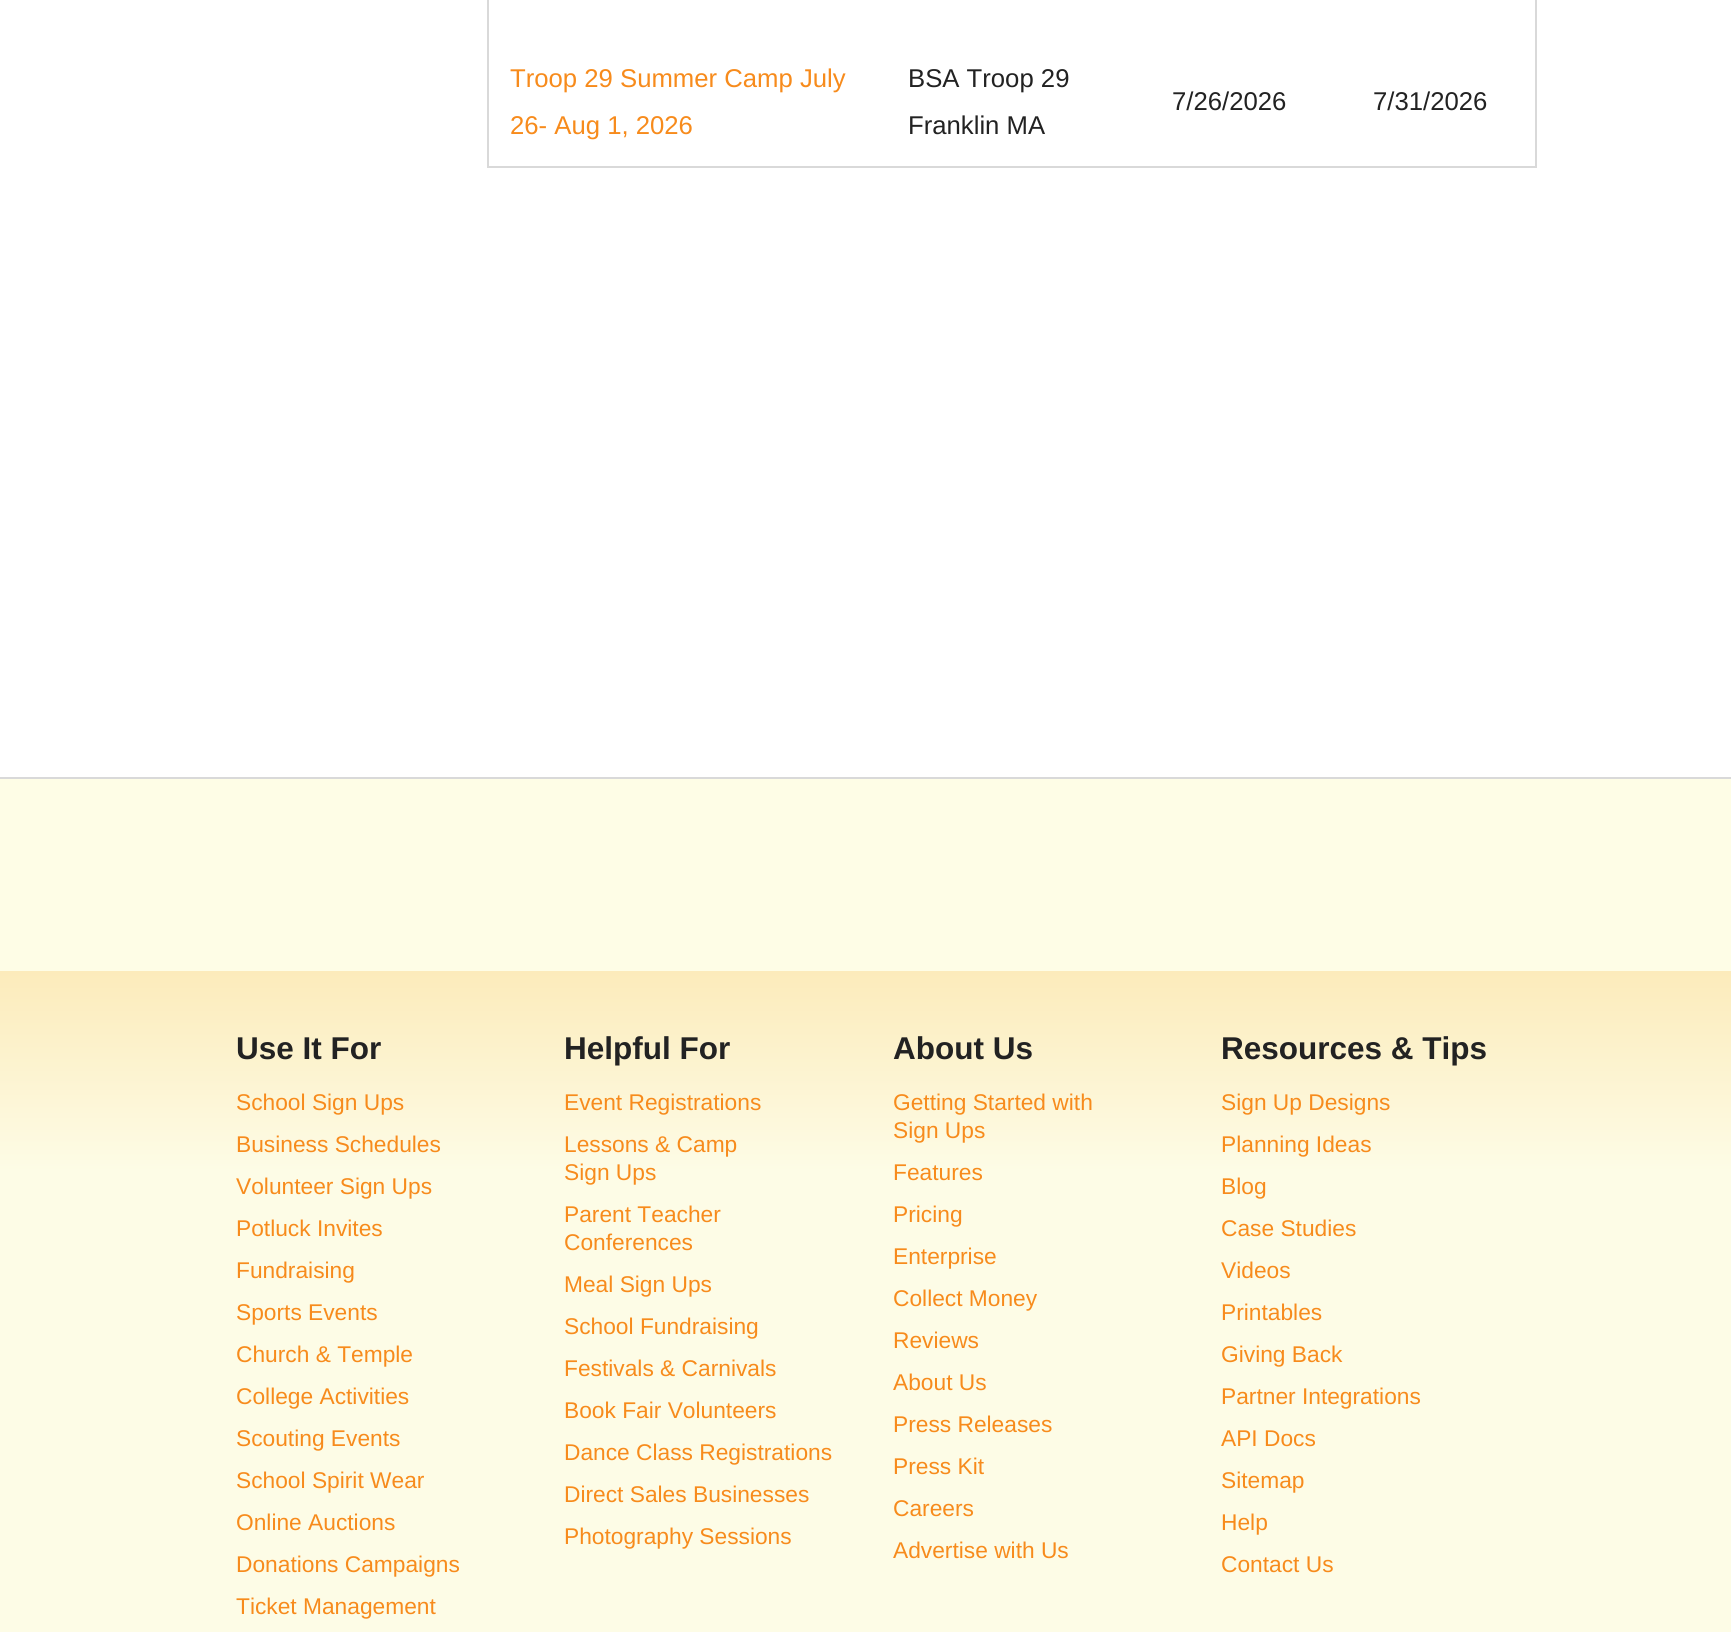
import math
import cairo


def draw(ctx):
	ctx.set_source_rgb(1, 1, 1)
	ctx.paint()
	ctx.set_source_rgb(0.851, 0.851, 0.851)
	ctx.rectangle(1535, 0, 2, 168)
	ctx.rectangle(487, 166, 1050, 2)
	ctx.rectangle(487, 0, 2, 168)
	ctx.fill()
	ctx.select_font_face('Liberation Sans')
	ctx.set_font_size(25.7)
	ctx.set_source_rgb(0.965, 0.545, 0.11)
	ctx.move_to(510, 87)
	ctx.show_text('Troop 29 Summer Camp July')
	ctx.move_to(510, 134)
	ctx.show_text('26- Aug 1, 2026')
	ctx.set_source_rgb(0.133, 0.133, 0.133)
	for x, y, s in [
		(908, 87, 'BSA Troop 29'),
		(908, 134, 'Franklin MA'),
		(1172, 110, '7/26/2026'),
		(1373, 110, '7/31/2026'),
	]:
		ctx.move_to(x, y)
		ctx.show_text(s)
	ctx.set_source_rgb(0.996, 0.992, 0.902)
	ctx.rectangle(0, 779, 1731, 192)
	ctx.fill()
	ctx.set_source_rgb(0.851, 0.851, 0.851)
	ctx.rectangle(0, 777, 1731, 2)
	ctx.fill()
	gradient = cairo.LinearGradient(866, 971, 866, 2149)
	gradient.add_color_stop_rgba(0, 0.988, 0.922, 0.733, 1)
	gradient.add_color_stop_rgba(0.17, 0.992, 0.988, 0.902, 1)
	ctx.set_source(gradient)
	ctx.rectangle(0, 971, 1731, 661)
	ctx.fill()
	ctx.select_font_face('Liberation Sans', cairo.FONT_SLANT_NORMAL, cairo.FONT_WEIGHT_BOLD)
	ctx.set_font_size(31.5)
	ctx.set_source_rgb(0.133, 0.133, 0.133)
	ctx.move_to(236, 1059)
	ctx.show_text('Use It For')
	ctx.select_font_face('Liberation Sans')
	ctx.set_font_size(22.75)
	ctx.set_source_rgb(0.965, 0.545, 0.11)
	for x, y, s in [
		(236, 1110, 'School Sign Ups'),
		(236, 1152, 'Business Schedules'),
		(236, 1194, 'Volunteer Sign Ups'),
		(236, 1236, 'Potluck Invites'),
		(236, 1278, 'Fundraising'),
		(236, 1320, 'Sports Events'),
		(236, 1362, 'Church & Temple'),
		(236, 1404, 'College Activities'),
		(236, 1446, 'Scouting Events'),
		(236, 1488, 'School Spirit Wear'),
		(236, 1530, 'Online Auctions'),
		(236, 1572, 'Donations Campaigns'),
		(236, 1614, 'Ticket Management'),
	]:
		ctx.move_to(x, y)
		ctx.show_text(s)
	ctx.select_font_face('Liberation Sans', cairo.FONT_SLANT_NORMAL, cairo.FONT_WEIGHT_BOLD)
	ctx.set_font_size(31.5)
	ctx.set_source_rgb(0.133, 0.133, 0.133)
	ctx.move_to(564, 1059)
	ctx.show_text('Helpful For')
	ctx.select_font_face('Liberation Sans')
	ctx.set_font_size(22.75)
	ctx.set_source_rgb(0.965, 0.545, 0.11)
	for x, y, s in [
		(564, 1110, 'Event Registrations'),
		(564, 1152, 'Lessons & Camp'),
		(564, 1180, 'Sign Ups'),
		(564, 1222, 'Parent Teacher'),
		(564, 1250, 'Conferences'),
		(564, 1292, 'Meal Sign Ups'),
		(564, 1334, 'School Fundraising'),
		(564, 1376, 'Festivals & Carnivals'),
		(564, 1418, 'Book Fair Volunteers'),
		(564, 1460, 'Dance Class Registrations'),
		(564, 1502, 'Direct Sales Businesses'),
		(564, 1544, 'Photography Sessions'),
	]:
		ctx.move_to(x, y)
		ctx.show_text(s)
	ctx.select_font_face('Liberation Sans', cairo.FONT_SLANT_NORMAL, cairo.FONT_WEIGHT_BOLD)
	ctx.set_font_size(31.5)
	ctx.set_source_rgb(0.133, 0.133, 0.133)
	ctx.move_to(893, 1059)
	ctx.show_text('About Us')
	ctx.select_font_face('Liberation Sans')
	ctx.set_font_size(22.75)
	ctx.set_source_rgb(0.965, 0.545, 0.11)
	for x, y, s in [
		(893, 1110, 'Getting Started with'),
		(893, 1138, 'Sign Ups'),
		(893, 1180, 'Features'),
		(893, 1222, 'Pricing'),
		(893, 1264, 'Enterprise'),
		(893, 1306, 'Collect Money'),
		(893, 1348, 'Reviews'),
		(893, 1390, 'About Us'),
		(893, 1432, 'Press Releases'),
		(893, 1474, 'Press Kit'),
		(893, 1516, 'Careers'),
		(893, 1558, 'Advertise with Us'),
	]:
		ctx.move_to(x, y)
		ctx.show_text(s)
	ctx.select_font_face('Liberation Sans', cairo.FONT_SLANT_NORMAL, cairo.FONT_WEIGHT_BOLD)
	ctx.set_font_size(31.5)
	ctx.set_source_rgb(0.133, 0.133, 0.133)
	ctx.move_to(1221, 1059)
	ctx.show_text('Resources & Tips')
	ctx.select_font_face('Liberation Sans')
	ctx.set_font_size(22.75)
	ctx.set_source_rgb(0.965, 0.545, 0.11)
	for x, y, s in [
		(1221, 1110, 'Sign Up Designs'),
		(1221, 1152, 'Planning Ideas'),
		(1221, 1194, 'Blog'),
		(1221, 1236, 'Case Studies'),
		(1221, 1278, 'Videos'),
		(1221, 1320, 'Printables'),
		(1221, 1362, 'Giving Back'),
		(1221, 1404, 'Partner Integrations'),
		(1221, 1446, 'API Docs'),
		(1221, 1488, 'Sitemap'),
		(1221, 1530, 'Help'),
		(1221, 1572, 'Contact Us'),
	]:
		ctx.move_to(x, y)
		ctx.show_text(s)


surface = cairo.ImageSurface(cairo.FORMAT_RGB24, 1731, 1632)
ctx = cairo.Context(surface)
options = cairo.FontOptions()
options.set_hint_metrics(cairo.HINT_METRICS_OFF)
options.set_hint_style(cairo.HINT_STYLE_NONE)
ctx.set_font_options(options)
ctx.set_miter_limit(4)
draw(ctx)
surface.write_to_png('image.png')
